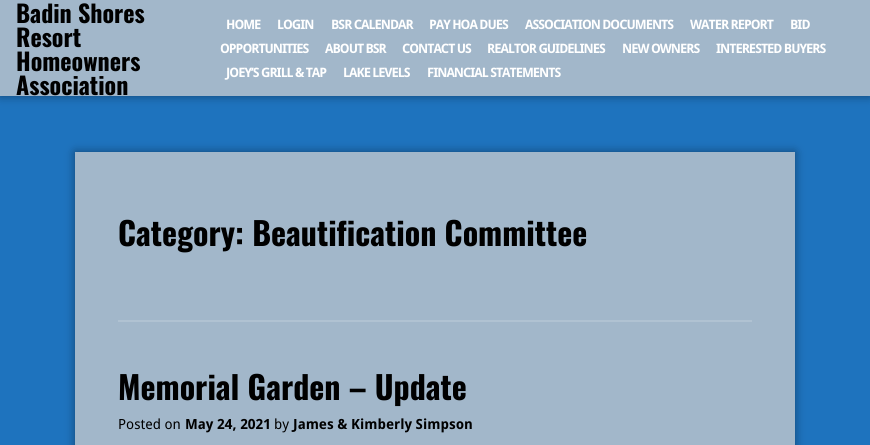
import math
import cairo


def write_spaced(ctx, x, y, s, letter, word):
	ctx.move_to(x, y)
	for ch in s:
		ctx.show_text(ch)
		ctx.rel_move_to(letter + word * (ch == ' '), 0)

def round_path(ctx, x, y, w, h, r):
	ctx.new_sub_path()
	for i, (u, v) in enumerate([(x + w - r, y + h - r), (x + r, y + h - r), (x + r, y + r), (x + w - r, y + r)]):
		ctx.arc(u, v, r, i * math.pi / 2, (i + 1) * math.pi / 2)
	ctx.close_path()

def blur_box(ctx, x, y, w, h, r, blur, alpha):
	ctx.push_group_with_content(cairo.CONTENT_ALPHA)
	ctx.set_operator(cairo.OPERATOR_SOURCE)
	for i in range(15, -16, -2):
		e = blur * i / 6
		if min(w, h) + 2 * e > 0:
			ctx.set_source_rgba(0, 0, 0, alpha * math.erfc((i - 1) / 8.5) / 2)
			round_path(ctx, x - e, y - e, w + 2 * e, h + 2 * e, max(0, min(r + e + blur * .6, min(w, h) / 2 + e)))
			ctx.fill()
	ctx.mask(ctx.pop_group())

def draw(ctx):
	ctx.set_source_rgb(0.118, 0.451, 0.745)
	ctx.paint()
	ctx.set_source_rgb(0, 0, 0)
	blur_box(ctx, 0, 0, 870, 96, 0, 5, 0.4)
	ctx.set_source_rgb(0.635, 0.718, 0.792)
	ctx.rectangle(0, 0, 870, 96)
	ctx.fill()
	ctx.select_font_face('Oswald', cairo.FONT_SLANT_NORMAL, cairo.FONT_WEIGHT_BOLD)
	ctx.set_font_size(24)
	ctx.set_source_rgb(0, 0, 0)
	for x, y, s in [
		(16, 23, 'Badin Shores'),
		(16, 47, 'Resort'),
		(16, 71, 'Homeowners'),
		(16, 95, 'Association'),
	]:
		ctx.move_to(x, y)
		ctx.show_text(s)
	ctx.select_font_face('Droid Sans', cairo.FONT_SLANT_NORMAL, cairo.FONT_WEIGHT_BOLD)
	ctx.set_font_size(13)
	ctx.set_source_rgb(1, 1, 1)
	for x, y, s in [
		(226, 29, 'HOME'),
		(277, 29, 'LOGIN'),
		(331, 29, 'BSR CALENDAR'),
		(429, 29, 'PAY HOA DUES'),
		(525, 29, 'ASSOCIATION DOCUMENTS'),
		(690, 29, 'WATER REPORT'),
		(790, 29, 'BID'),
		(220, 53, 'OPPORTUNITIES'),
		(325, 53, 'ABOUT BSR'),
		(402, 53, 'CONTACT US'),
		(487, 53, 'REALTOR GUIDELINES'),
		(622, 53, 'NEW OWNERS'),
		(716, 53, 'INTERESTED BUYERS'),
		(226, 77, 'JOEY’S GRILL & TAP'),
		(343, 77, 'LAKE LEVELS'),
		(427, 77, 'FINANCIAL STATEMENTS'),
	]:
		write_spaced(ctx, x, y, s, -1, 0)
	ctx.set_source_rgb(0, 0, 0)
	blur_box(ctx, 75, 152, 720, 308, 0, 5, 0.4)
	ctx.set_source_rgb(0.635, 0.718, 0.792)
	ctx.rectangle(75, 152, 720, 293)
	ctx.fill()
	ctx.set_source_rgb(0.69, 0.761, 0.824)
	ctx.rectangle(118, 320, 634, 2)
	ctx.fill()
	ctx.select_font_face('Oswald', cairo.FONT_SLANT_NORMAL, cairo.FONT_WEIGHT_BOLD)
	ctx.set_font_size(32)
	ctx.set_source_rgb(0, 0, 0)
	ctx.move_to(118, 246)
	ctx.show_text('Category: Beautification Committee')
	ctx.move_to(118, 400)
	ctx.show_text('Memorial Garden – Update')
	ctx.select_font_face('Droid Sans')
	ctx.set_font_size(14)
	ctx.move_to(118, 429)
	ctx.show_text('Posted on')
	ctx.select_font_face('Droid Sans', cairo.FONT_SLANT_NORMAL, cairo.FONT_WEIGHT_BOLD)
	ctx.move_to(185, 429)
	ctx.show_text('May 24, 2021')
	ctx.select_font_face('Droid Sans')
	ctx.move_to(274, 429)
	ctx.show_text('by')
	ctx.select_font_face('Droid Sans', cairo.FONT_SLANT_NORMAL, cairo.FONT_WEIGHT_BOLD)
	ctx.move_to(293, 429)
	ctx.show_text('James & Kimberly Simpson')


surface = cairo.ImageSurface(cairo.FORMAT_RGB24, 870, 445)
ctx = cairo.Context(surface)
options = cairo.FontOptions()
options.set_hint_metrics(cairo.HINT_METRICS_OFF)
options.set_hint_style(cairo.HINT_STYLE_NONE)
ctx.set_font_options(options)
ctx.set_miter_limit(4)
draw(ctx)
surface.write_to_png('image.png')
